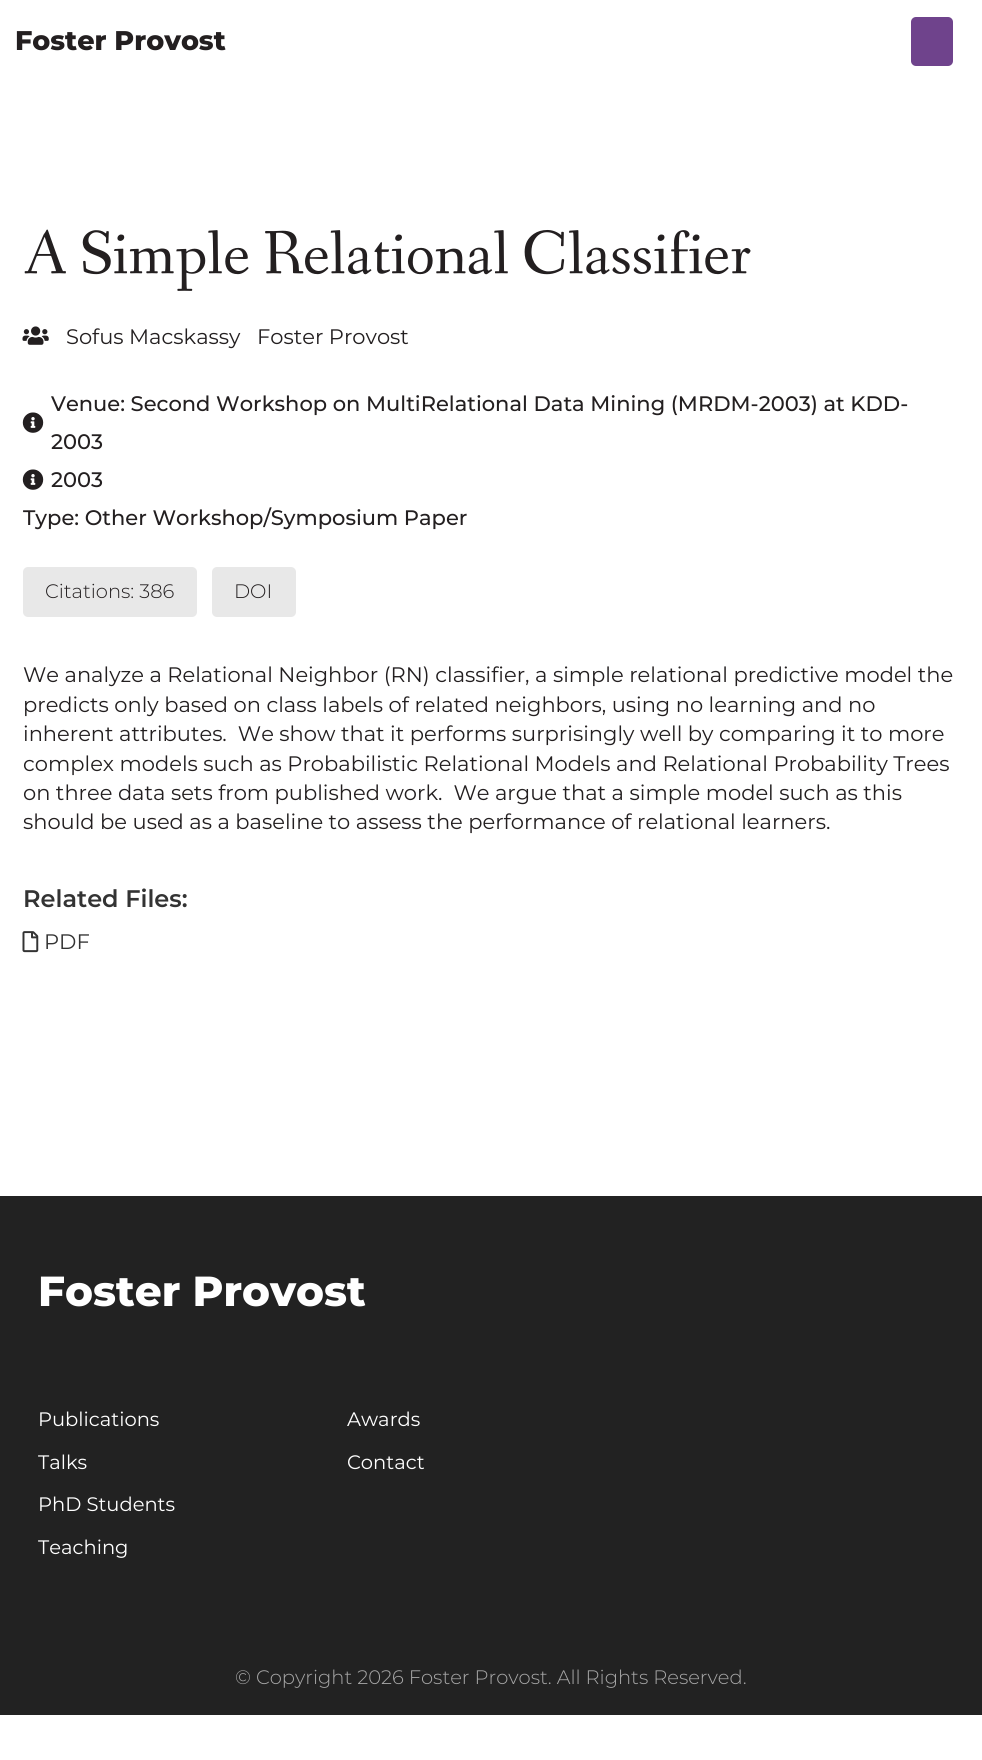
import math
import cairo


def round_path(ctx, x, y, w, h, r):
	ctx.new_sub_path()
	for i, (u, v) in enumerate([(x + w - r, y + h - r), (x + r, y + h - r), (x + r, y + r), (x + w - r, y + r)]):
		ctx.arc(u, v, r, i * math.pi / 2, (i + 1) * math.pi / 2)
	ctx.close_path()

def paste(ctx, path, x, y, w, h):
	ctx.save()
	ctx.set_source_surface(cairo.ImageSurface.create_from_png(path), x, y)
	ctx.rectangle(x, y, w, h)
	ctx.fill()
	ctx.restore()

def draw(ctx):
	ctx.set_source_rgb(1, 1, 1)
	ctx.paint()
	ctx.select_font_face('Montserrat ExtraBold')
	ctx.set_font_size(27)
	ctx.set_source_rgb(0.137, 0.122, 0.125)
	ctx.move_to(15, 50)
	ctx.show_text('Foster Provost')
	ctx.set_source_rgb(0.435, 0.263, 0.549)
	round_path(ctx, 911, 17, 42, 49, 5)
	ctx.fill()
	ctx.select_font_face('Fanwood Text')
	ctx.set_font_size(63)
	ctx.set_source_rgb(0.137, 0.122, 0.125)
	ctx.move_to(23, 273)
	ctx.show_text('A Simple Relational Classifier')
	paste(ctx, 'media/1.png', 22, 326, 27, 19)
	ctx.select_font_face('Montserrat')
	ctx.set_font_size(21)
	ctx.move_to(66, 344)
	ctx.show_text('Sofus Macskassy')
	ctx.move_to(257, 344)
	ctx.show_text('Foster Provost')
	paste(ctx, 'media/2.png', 22, 412, 22, 21)
	ctx.select_font_face('Montserrat Medium')
	ctx.move_to(51, 411)
	ctx.show_text('Venue: Second Workshop on MultiRelational Data Mining (MRDM-2003) at KDD-')
	ctx.move_to(51, 449)
	ctx.show_text('2003')
	paste(ctx, 'media/2.png', 22, 469, 22, 21)
	ctx.move_to(51, 487)
	ctx.show_text('2003')
	ctx.move_to(23, 525)
	ctx.show_text('Type: Other Workshop/Symposium Paper')
	ctx.set_source_rgb(0.91, 0.91, 0.91)
	round_path(ctx, 23, 567, 174, 50, 5)
	ctx.fill()
	ctx.select_font_face('Montserrat Light')
	ctx.set_font_size(19.5)
	ctx.set_source_rgb(0.137, 0.122, 0.125)
	ctx.move_to(45, 598)
	ctx.show_text('Citations: 386')
	ctx.set_source_rgb(0.91, 0.91, 0.91)
	round_path(ctx, 212, 567, 84, 50, 5)
	ctx.fill()
	ctx.set_source_rgb(0.137, 0.122, 0.125)
	ctx.move_to(234, 598)
	ctx.show_text('DOI')
	ctx.select_font_face('Montserrat')
	ctx.set_font_size(21)
	for x, y, s in [
		(23, 682, 'We analyze a Relational Neighbor (RN) classifier, a simple relational predictive model the'),
		(23, 712, 'predicts only based on class labels of related neighbors, using no learning and no'),
		(23, 741, 'inherent attributes.  We show that it performs surprisingly well by comparing it to more'),
		(23, 771, 'complex models such as Probabilistic Relational Models and Relational Probability Trees'),
		(23, 800, 'on three data sets from published work.  We argue that a simple model such as this'),
		(23, 829, 'should be used as a baseline to assess the performance of relational learners.'),
	]:
		ctx.move_to(x, y)
		ctx.show_text(s)
	ctx.select_font_face('Montserrat SemiBold')
	ctx.set_font_size(24)
	ctx.set_source_rgb(0.2, 0.2, 0.2)
	ctx.move_to(23, 907)
	ctx.show_text('Related Files:')
	paste(ctx, 'media/3.png', 22, 931, 17, 22)
	ctx.select_font_face('Montserrat')
	ctx.set_font_size(21)
	ctx.move_to(44, 949)
	ctx.show_text('PDF')
	ctx.set_source_rgb(0.133, 0.133, 0.133)
	ctx.rectangle(0, 1196, 982, 519)
	ctx.fill()
	ctx.select_font_face('Montserrat ExtraBold')
	ctx.set_font_size(42)
	ctx.set_source_rgb(1, 1, 1)
	ctx.move_to(38, 1306)
	ctx.show_text('Foster Provost')
	ctx.select_font_face('Montserrat')
	ctx.set_font_size(19.5)
	for x, y, s in [
		(38, 1426, 'Publications'),
		(38, 1469, 'Talks'),
		(38, 1511, 'PhD Students'),
		(38, 1554, 'Teaching'),
		(347, 1426, 'Awards'),
		(347, 1469, 'Contact'),
	]:
		ctx.move_to(x, y)
		ctx.show_text(s)
	ctx.select_font_face('Montserrat Light')
	ctx.set_source_rgb(0.655, 0.655, 0.655)
	ctx.move_to(235, 1684)
	ctx.show_text('© Copyright 2026 Foster Provost. All Rights Reserved.')


surface = cairo.ImageSurface(cairo.FORMAT_RGB24, 982, 1760)
ctx = cairo.Context(surface)
options = cairo.FontOptions()
options.set_hint_metrics(cairo.HINT_METRICS_OFF)
options.set_hint_style(cairo.HINT_STYLE_NONE)
ctx.set_font_options(options)
ctx.set_miter_limit(4)
draw(ctx)
surface.write_to_png('image.png')
